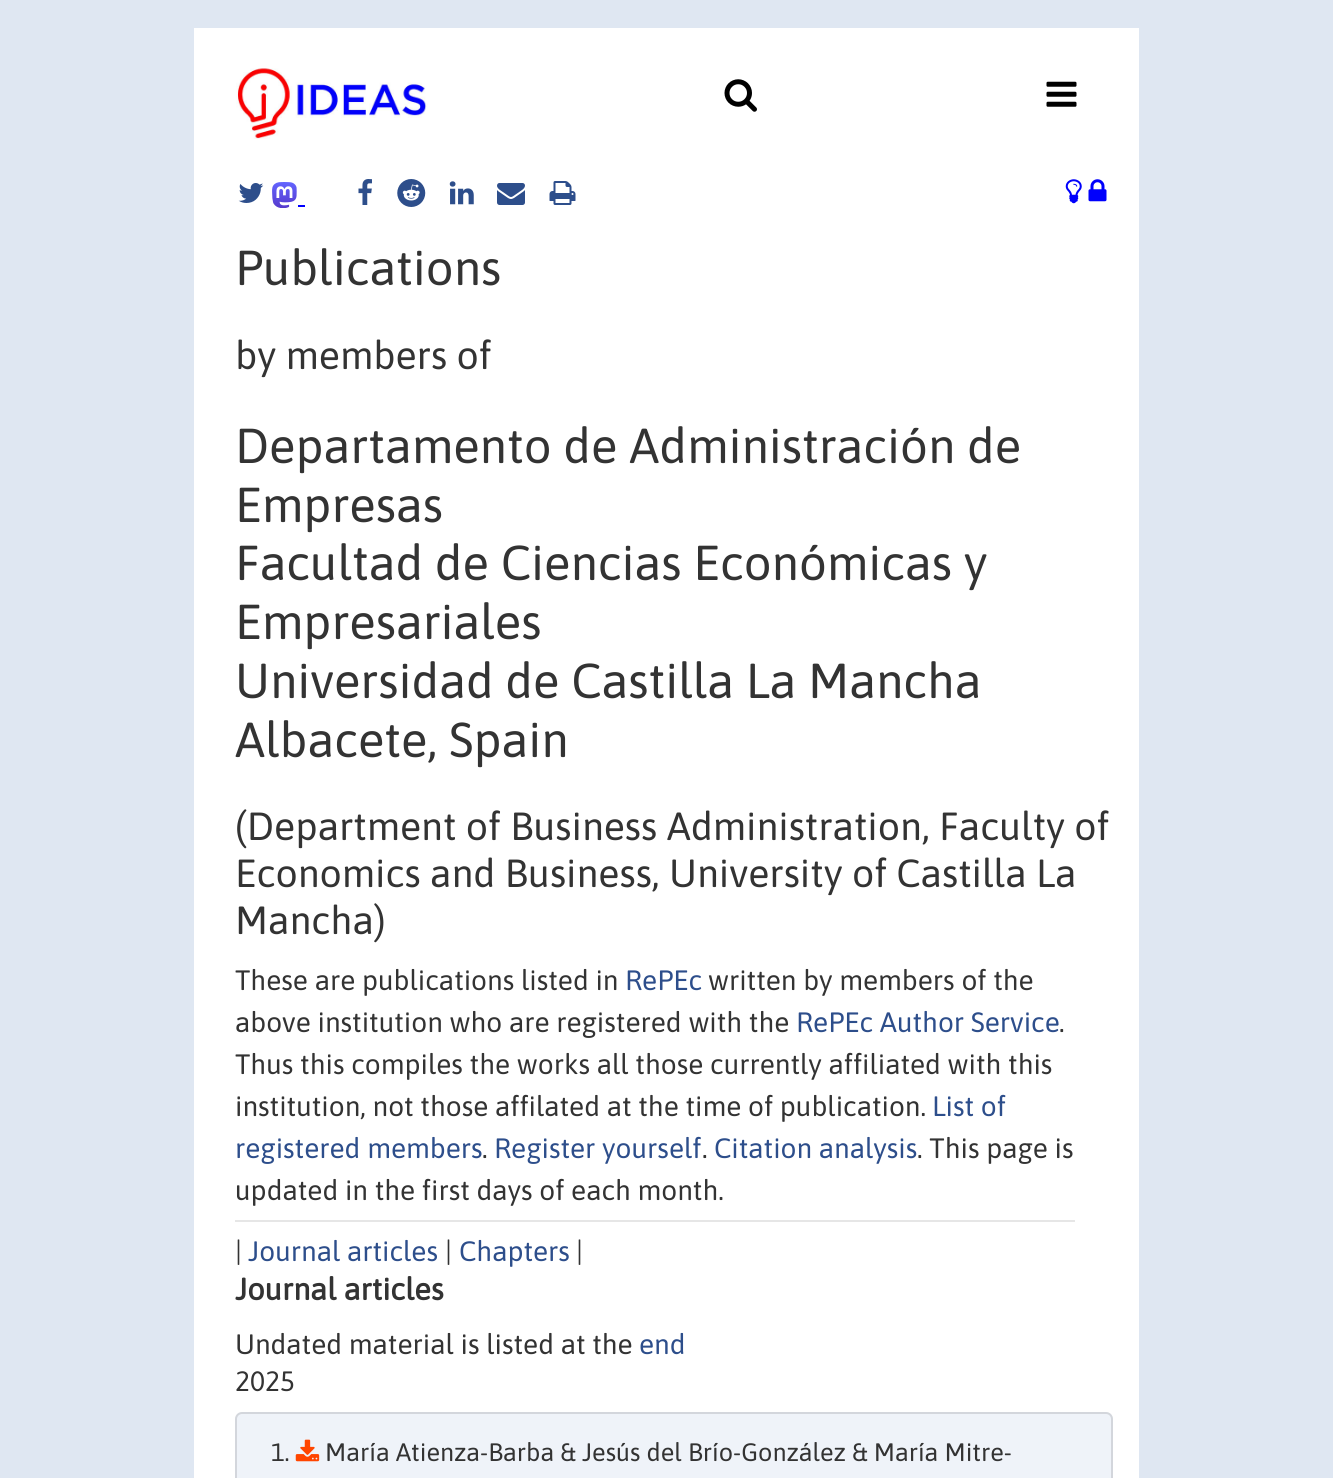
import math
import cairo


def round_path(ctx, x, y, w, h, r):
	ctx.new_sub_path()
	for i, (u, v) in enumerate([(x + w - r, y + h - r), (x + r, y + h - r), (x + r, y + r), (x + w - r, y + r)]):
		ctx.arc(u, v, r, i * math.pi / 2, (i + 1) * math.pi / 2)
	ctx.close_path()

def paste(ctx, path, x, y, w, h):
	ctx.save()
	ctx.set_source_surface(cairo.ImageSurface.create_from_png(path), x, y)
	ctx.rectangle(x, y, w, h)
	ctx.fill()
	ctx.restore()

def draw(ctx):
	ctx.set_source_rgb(0.875, 0.906, 0.949)
	ctx.paint()
	ctx.set_source_rgb(1, 1, 1)
	ctx.rectangle(194, 28, 945, 1450)
	ctx.fill()
	paste(ctx, 'media/1.png', 236, 68, 192, 71)
	paste(ctx, 'media/2.png', 724, 79, 33, 33)
	paste(ctx, 'media/3.png', 1046, 81, 31, 26)
	paste(ctx, 'media/4.png', 238, 183, 26, 20)
	paste(ctx, 'media/5.png', 272, 182, 25, 26)
	ctx.set_source_rgb(0, 0, 1)
	ctx.rectangle(298, 205, 7, 2)
	ctx.fill()
	paste(ctx, 'media/6.png', 358, 179, 14, 26)
	paste(ctx, 'media/7.png', 397, 179, 29, 28)
	paste(ctx, 'media/8.png', 449, 181, 25, 24)
	paste(ctx, 'media/9.png', 497, 183, 28, 22)
	paste(ctx, 'media/10.png', 549, 181, 27, 24)
	paste(ctx, 'media/11.png', 1065, 179, 17, 25)
	paste(ctx, 'media/12.png', 1088, 179, 19, 23)
	ctx.select_font_face('Asap')
	ctx.set_font_size(49)
	ctx.set_source_rgb(0.2, 0.2, 0.2)
	ctx.move_to(235, 285)
	ctx.show_text('Publications')
	ctx.set_font_size(39.2)
	ctx.move_to(235, 369)
	ctx.show_text('by members of')
	ctx.set_font_size(49)
	for x, y, s in [
		(235, 463, 'Departamento de Administración de'),
		(235, 522, 'Empresas'),
		(235, 580, 'Facultad de Ciencias Económicas y'),
		(235, 639, 'Empresariales'),
		(235, 698, 'Universidad de Castilla La Mancha'),
		(235, 757, 'Albacete, Spain'),
	]:
		ctx.move_to(x, y)
		ctx.show_text(s)
	ctx.set_font_size(39.2)
	for x, y, s in [
		(235, 840, '(Department of Business Administration, Faculty of'),
		(235, 887, 'Economics and Business, University of Castilla La'),
		(235, 934, 'Mancha)'),
	]:
		ctx.move_to(x, y)
		ctx.show_text(s)
	ctx.set_font_size(28)
	ctx.move_to(235, 990)
	ctx.show_text('These are publications listed in')
	ctx.set_source_rgb(0.176, 0.306, 0.545)
	ctx.move_to(625, 990)
	ctx.show_text('RePEc')
	ctx.set_source_rgb(0.2, 0.2, 0.2)
	ctx.move_to(708, 990)
	ctx.show_text('written by members of the')
	ctx.move_to(235, 1032)
	ctx.show_text('above institution who are registered with the')
	ctx.set_source_rgb(0.176, 0.306, 0.545)
	ctx.move_to(796, 1032)
	ctx.show_text('RePEc Author Service')
	ctx.set_source_rgb(0.2, 0.2, 0.2)
	for x, y, s in [
		(1059, 1032, '.'),
		(235, 1074, 'Thus this compiles the works all those currently affiliated with this'),
		(235, 1116, 'institution, not those affilated at the time of publication.'),
	]:
		ctx.move_to(x, y)
		ctx.show_text(s)
	ctx.set_source_rgb(0.176, 0.306, 0.545)
	ctx.move_to(932, 1116)
	ctx.show_text('List of')
	ctx.move_to(235, 1158)
	ctx.show_text('registered members')
	ctx.set_source_rgb(0.2, 0.2, 0.2)
	ctx.move_to(482, 1158)
	ctx.show_text('.')
	ctx.set_source_rgb(0.176, 0.306, 0.545)
	ctx.move_to(494, 1158)
	ctx.show_text('Register yourself')
	ctx.set_source_rgb(0.2, 0.2, 0.2)
	ctx.move_to(702, 1158)
	ctx.show_text('.')
	ctx.set_source_rgb(0.176, 0.306, 0.545)
	ctx.move_to(714, 1158)
	ctx.show_text('Citation analysis')
	ctx.set_source_rgb(0.2, 0.2, 0.2)
	ctx.move_to(917, 1158)
	ctx.show_text('. This page is')
	ctx.move_to(235, 1200)
	ctx.show_text('updated in the first days of each month.')
	ctx.set_source_rgb(0.902, 0.902, 0.902)
	ctx.rectangle(235, 1220, 840, 2)
	ctx.fill()
	ctx.set_source_rgb(0.2, 0.2, 0.2)
	ctx.move_to(235, 1261)
	ctx.show_text('|')
	ctx.set_source_rgb(0.176, 0.306, 0.545)
	ctx.move_to(248, 1261)
	ctx.show_text('Journal articles')
	ctx.set_source_rgb(0.2, 0.2, 0.2)
	ctx.move_to(445, 1261)
	ctx.show_text('|')
	ctx.set_source_rgb(0.176, 0.306, 0.545)
	ctx.move_to(459, 1261)
	ctx.show_text('Chapters')
	ctx.set_source_rgb(0.2, 0.2, 0.2)
	ctx.move_to(576, 1261)
	ctx.show_text('|')
	ctx.select_font_face('Asap', cairo.FONT_SLANT_NORMAL, cairo.FONT_WEIGHT_BOLD)
	ctx.set_font_size(30.75)
	ctx.move_to(235, 1300)
	ctx.show_text('Journal articles')
	ctx.select_font_face('Asap')
	ctx.set_font_size(28)
	ctx.move_to(235, 1354)
	ctx.show_text('Undated material is listed at the')
	ctx.set_source_rgb(0.176, 0.306, 0.545)
	ctx.move_to(639, 1354)
	ctx.show_text('end')
	ctx.set_source_rgb(0.2, 0.2, 0.2)
	ctx.move_to(235, 1391)
	ctx.show_text('2025')
	ctx.set_source_rgb(0.937, 0.953, 0.973)
	round_path(ctx, 235, 1412, 878, 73, 7)
	ctx.fill()
	round_path(ctx, 236, 1413, 876, 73, 6)
	ctx.set_source_rgba(0, 0, 0, 0.12)
	ctx.stroke()
	ctx.set_font_size(25.2)
	ctx.set_source_rgb(0.2, 0.2, 0.2)
	ctx.move_to(271, 1461)
	ctx.show_text('1.')
	paste(ctx, 'media/13.png', 295, 1439, 25, 23)
	ctx.move_to(325, 1461)
	ctx.show_text('María Atienza-Barba & Jesús del Brío-González & María Mitre-')


surface = cairo.ImageSurface(cairo.FORMAT_RGB24, 1333, 1478)
ctx = cairo.Context(surface)
options = cairo.FontOptions()
options.set_hint_metrics(cairo.HINT_METRICS_OFF)
options.set_hint_style(cairo.HINT_STYLE_NONE)
ctx.set_font_options(options)
ctx.set_miter_limit(4)
draw(ctx)
surface.write_to_png('image.png')
